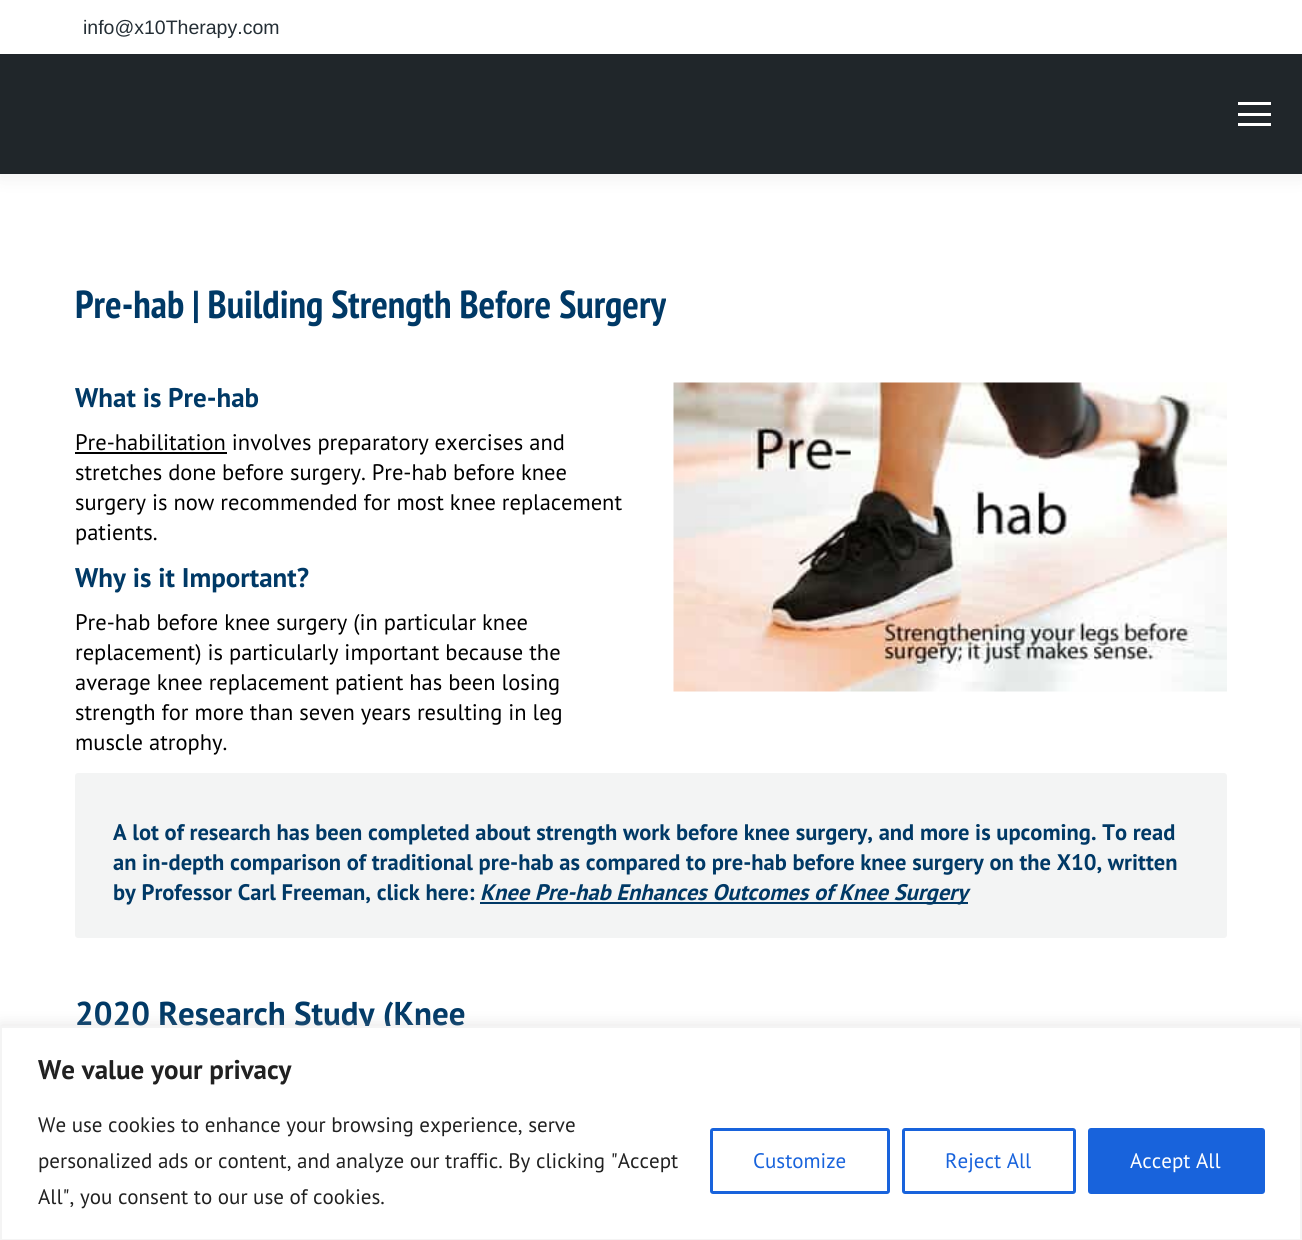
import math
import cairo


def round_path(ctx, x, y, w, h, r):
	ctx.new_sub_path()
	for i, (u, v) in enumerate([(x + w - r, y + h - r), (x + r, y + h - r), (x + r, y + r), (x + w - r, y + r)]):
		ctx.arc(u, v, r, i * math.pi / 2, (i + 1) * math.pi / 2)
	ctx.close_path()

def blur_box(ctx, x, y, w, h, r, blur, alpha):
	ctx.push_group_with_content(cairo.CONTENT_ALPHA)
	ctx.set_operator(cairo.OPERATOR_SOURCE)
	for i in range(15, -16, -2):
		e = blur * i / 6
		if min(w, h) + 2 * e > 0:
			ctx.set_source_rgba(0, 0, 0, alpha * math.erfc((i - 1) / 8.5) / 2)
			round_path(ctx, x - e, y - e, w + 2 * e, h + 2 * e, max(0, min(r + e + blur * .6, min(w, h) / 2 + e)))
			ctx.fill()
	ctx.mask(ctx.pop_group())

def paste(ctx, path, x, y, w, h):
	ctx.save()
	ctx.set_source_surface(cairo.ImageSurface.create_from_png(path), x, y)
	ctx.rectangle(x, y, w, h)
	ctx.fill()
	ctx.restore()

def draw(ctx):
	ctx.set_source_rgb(1, 1, 1)
	ctx.paint()
	ctx.set_source_rgb(0, 0, 0)
	blur_box(ctx, -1, -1, 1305, 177, 0, 11, 0.07)
	ctx.set_source_rgb(0.125, 0.149, 0.165)
	ctx.rectangle(0, 54, 1302, 120)
	ctx.fill()
	ctx.set_source_rgb(1, 1, 1)
	ctx.rectangle(0, 0, 1302, 54)
	ctx.fill()
	ctx.select_font_face('Liberation Sans')
	ctx.set_font_size(19.5)
	ctx.set_source_rgb(0.141, 0.18, 0.208)
	ctx.move_to(83, 34)
	ctx.show_text('info@x10Therapy.com')
	ctx.set_source_rgb(1, 1, 1)
	ctx.rectangle(1238, 102, 33, 3)
	ctx.rectangle(1238, 113, 33, 3)
	ctx.rectangle(1238, 123, 33, 3)
	ctx.fill()
	ctx.select_font_face('PT Sans Narrow', cairo.FONT_SLANT_NORMAL, cairo.FONT_WEIGHT_BOLD)
	ctx.set_font_size(39)
	ctx.set_source_rgb(0, 0.224, 0.4)
	ctx.move_to(75, 318)
	ctx.show_text('Pre-hab | Building Strength Before Surgery')
	ctx.select_font_face('PT Sans', cairo.FONT_SLANT_NORMAL, cairo.FONT_WEIGHT_BOLD)
	ctx.set_font_size(27)
	ctx.move_to(75, 407)
	ctx.show_text('What is Pre-hab')
	ctx.set_source_rgb(0, 0, 0)
	ctx.rectangle(75, 452, 152, 2)
	ctx.fill()
	ctx.select_font_face('PT Sans')
	ctx.set_font_size(22.5)
	for x, y, s in [
		(75, 450, 'Pre-habilitation involves preparatory exercises and'),
		(75, 480, 'stretches done before surgery. Pre-hab before knee'),
		(75, 510, 'surgery is now recommended for most knee replacement'),
		(75, 540, 'patients.'),
	]:
		ctx.move_to(x, y)
		ctx.show_text(s)
	ctx.select_font_face('PT Sans', cairo.FONT_SLANT_NORMAL, cairo.FONT_WEIGHT_BOLD)
	ctx.set_font_size(27)
	ctx.set_source_rgb(0, 0.224, 0.4)
	ctx.move_to(75, 587)
	ctx.show_text('Why is it Important?')
	ctx.select_font_face('PT Sans')
	ctx.set_font_size(22.5)
	ctx.set_source_rgb(0, 0, 0)
	for x, y, s in [
		(75, 630, 'Pre-hab before knee surgery (in particular knee'),
		(75, 660, 'replacement) is particularly important because the'),
		(75, 690, 'average knee replacement patient has been losing'),
		(75, 720, 'strength for more than seven years resulting in leg'),
		(75, 750, 'muscle atrophy.'),
	]:
		ctx.move_to(x, y)
		ctx.show_text(s)
	paste(ctx, 'media/1.png', 673, 382, 554, 310)
	ctx.set_source_rgb(0.953, 0.957, 0.957)
	round_path(ctx, 75, 773, 1152, 165, 3)
	ctx.fill()
	ctx.select_font_face('PT Sans', cairo.FONT_SLANT_NORMAL, cairo.FONT_WEIGHT_BOLD)
	ctx.set_source_rgb(0, 0.224, 0.4)
	for x, y, s in [
		(113, 840, 'A lot of research has been completed about strength work before knee surgery, and more is upcoming. To read'),
		(113, 870, 'an in-depth comparison of traditional pre-hab as compared to pre-hab before knee surgery on the X10, written'),
		(113, 900, 'by Professor Carl Freeman, click here:'),
	]:
		ctx.move_to(x, y)
		ctx.show_text(s)
	ctx.rectangle(480, 902, 488, 2)
	ctx.fill()
	ctx.select_font_face('PT Sans', cairo.FONT_SLANT_ITALIC, cairo.FONT_WEIGHT_BOLD)
	ctx.move_to(480, 900)
	ctx.show_text('Knee Pre-hab Enhances Outcomes of Knee Surgery')
	ctx.select_font_face('PT Sans', cairo.FONT_SLANT_NORMAL, cairo.FONT_WEIGHT_BOLD)
	ctx.set_font_size(33)
	ctx.move_to(75, 1025)
	ctx.show_text('2020 Research Study (Knee')
	ctx.set_source_rgb(0.675, 0.671, 0.671)
	blur_box(ctx, 0, 1025, 1302, 214, 0, 7.5, 0.3)
	ctx.set_source_rgb(1, 1, 1)
	ctx.rectangle(1, 1027, 1300, 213)
	ctx.fill_preserve()
	ctx.set_source_rgb(0.957, 0.957, 0.957)
	ctx.stroke()
	ctx.set_font_size(27)
	ctx.set_source_rgb(0.129, 0.129, 0.129)
	ctx.move_to(38, 1079)
	ctx.show_text('We value your privacy')
	ctx.select_font_face('PT Sans')
	ctx.set_font_size(21)
	for x, y, s in [
		(38, 1132, 'We use cookies to enhance your browsing experience, serve'),
		(38, 1168, 'personalized ads or content, and analyze our traffic. By clicking "Accept'),
		(38, 1204, 'All", you consent to our use of cookies.'),
	]:
		ctx.move_to(x, y)
		ctx.show_text(s)
	round_path(ctx, 711.5, 1129.5, 177, 63, 1.5)
	ctx.set_source_rgb(0.094, 0.388, 0.863)
	ctx.set_line_width(3)
	ctx.stroke()
	ctx.move_to(753, 1168)
	ctx.show_text('Customize')
	round_path(ctx, 903.5, 1129.5, 171, 63, 1.5)
	ctx.stroke()
	ctx.move_to(945, 1168)
	ctx.show_text('Reject All')
	round_path(ctx, 1089.5, 1129.5, 174, 63, 1.5)
	ctx.fill_preserve()
	ctx.stroke()
	ctx.set_source_rgb(1, 1, 1)
	ctx.move_to(1130, 1168)
	ctx.show_text('Accept All')


surface = cairo.ImageSurface(cairo.FORMAT_RGB24, 1302, 1240)
ctx = cairo.Context(surface)
options = cairo.FontOptions()
options.set_hint_metrics(cairo.HINT_METRICS_OFF)
options.set_hint_style(cairo.HINT_STYLE_NONE)
ctx.set_font_options(options)
ctx.set_miter_limit(4)
draw(ctx)
surface.write_to_png('image.png')
